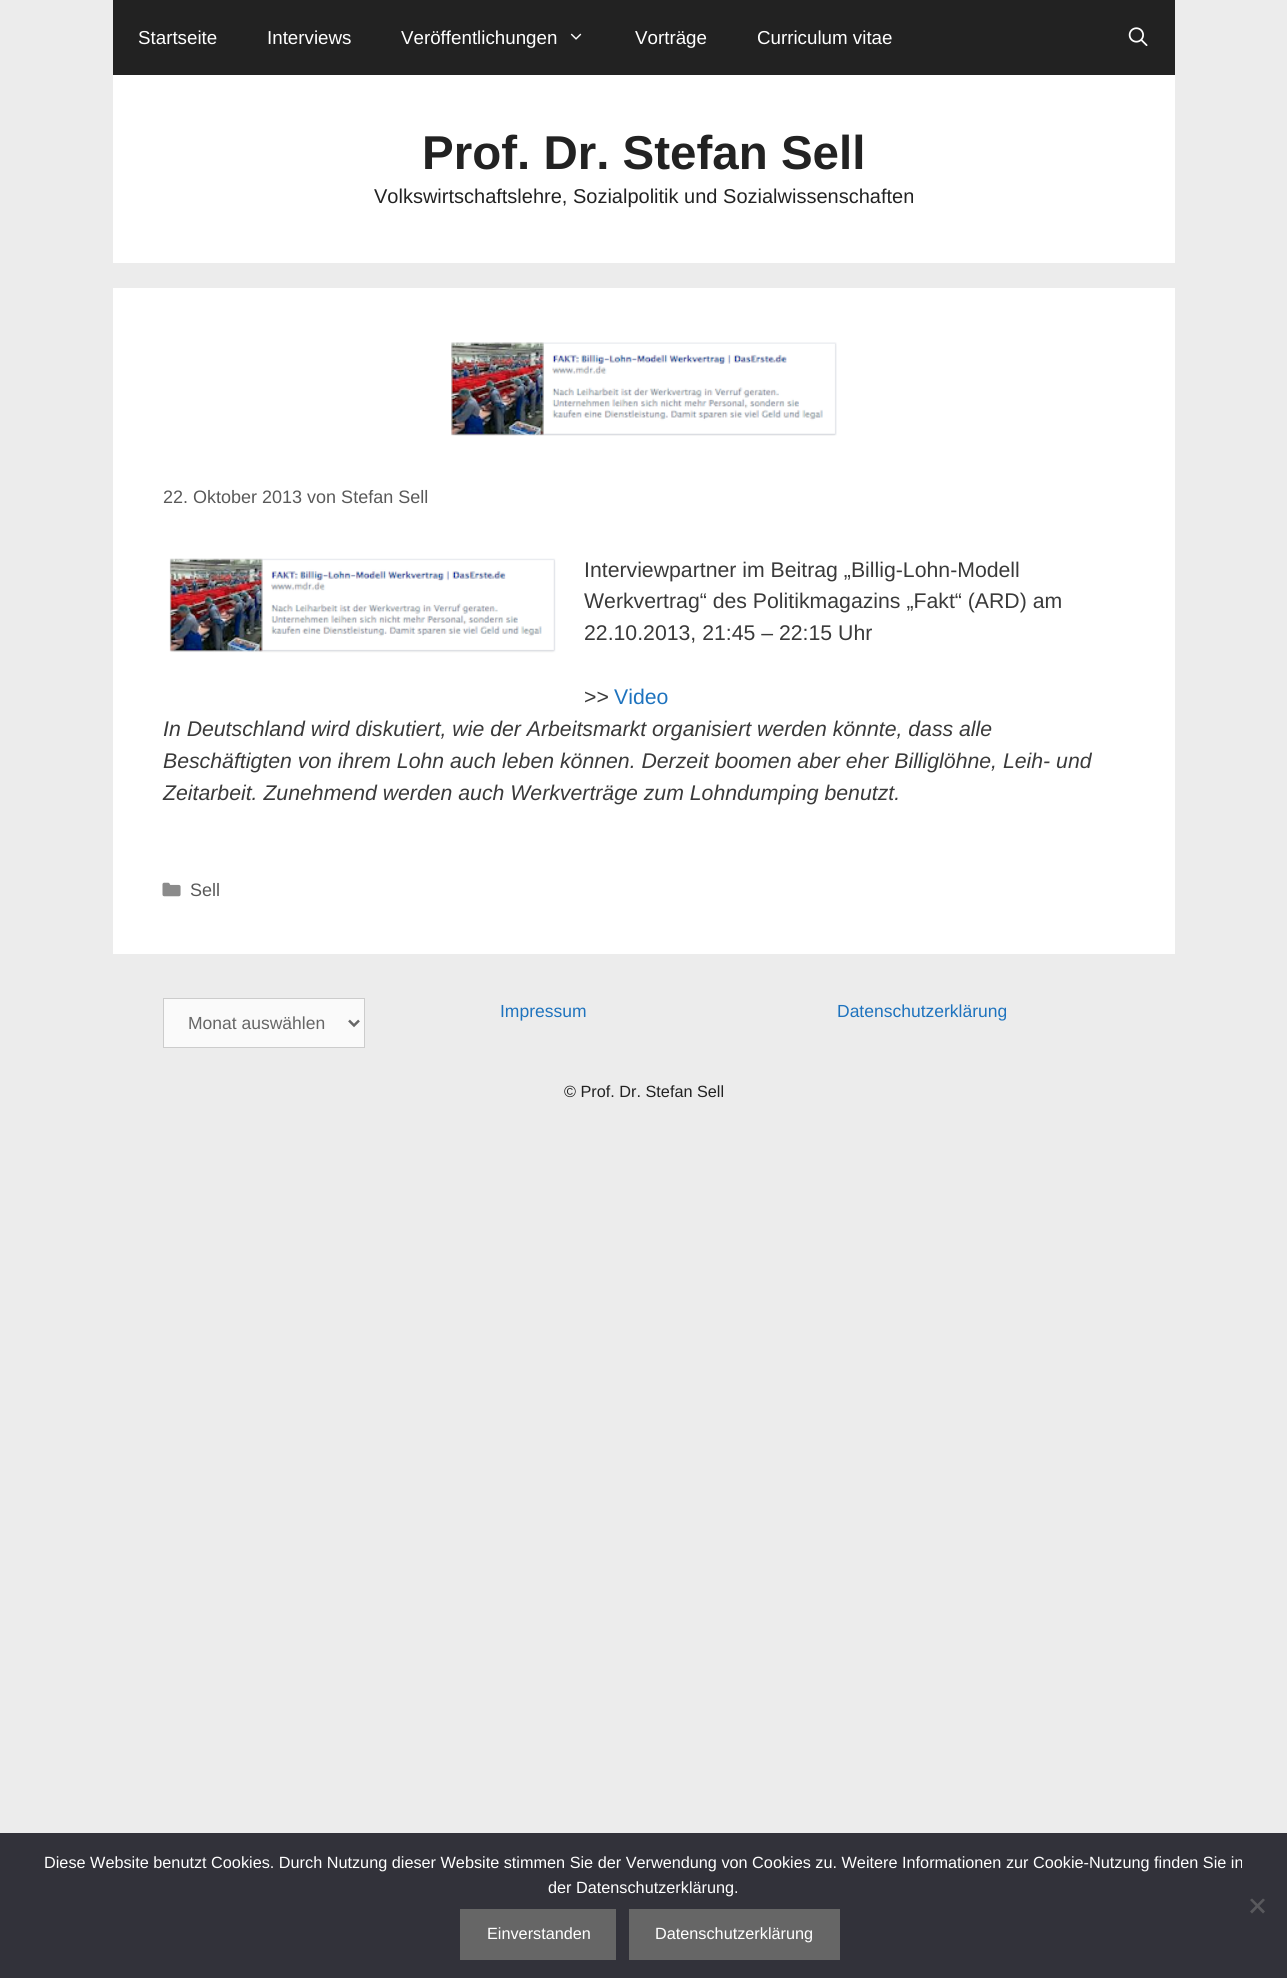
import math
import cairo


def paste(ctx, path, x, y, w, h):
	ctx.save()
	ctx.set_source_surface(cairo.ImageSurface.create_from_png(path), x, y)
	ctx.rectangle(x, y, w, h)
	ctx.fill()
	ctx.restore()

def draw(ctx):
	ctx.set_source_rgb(0.925, 0.925, 0.925)
	ctx.paint()
	ctx.set_source_rgb(0.133, 0.133, 0.133)
	ctx.rectangle(113, 0, 1062, 75)
	ctx.fill()
	ctx.select_font_face('Liberation Sans')
	ctx.set_font_size(18.75)
	ctx.set_source_rgb(1, 1, 1)
	for x, y, s in [
		(138, 44, 'Startseite'),
		(267, 44, 'Interviews'),
		(401, 44, 'Veröffentlichungen'),
	]:
		ctx.move_to(x, y)
		ctx.show_text(s)
	paste(ctx, 'media/1.png', 570, 33, 12, 7)
	ctx.move_to(635, 44)
	ctx.show_text('Vorträge')
	ctx.move_to(757, 44)
	ctx.show_text('Curriculum vitae')
	paste(ctx, 'media/2.png', 1128, 27, 20, 19)
	ctx.rectangle(113, 75, 1062, 188)
	ctx.fill()
	ctx.select_font_face('Liberation Sans', cairo.FONT_SLANT_NORMAL, cairo.FONT_WEIGHT_BOLD)
	ctx.set_font_size(47.5)
	ctx.set_source_rgb(0.133, 0.133, 0.133)
	ctx.move_to(422, 169)
	ctx.show_text('Prof. Dr. Stefan Sell')
	ctx.select_font_face('Liberation Sans')
	ctx.set_font_size(20)
	ctx.move_to(374, 203)
	ctx.show_text('Volkswirtschaftslehre, Sozialpolitik und Sozialwissenschaften')
	ctx.set_source_rgb(1, 1, 1)
	ctx.rectangle(113, 288, 1062, 666)
	ctx.fill()
	paste(ctx, 'media/3.png', 451, 342, 386, 94)
	ctx.set_font_size(18)
	ctx.set_source_rgb(0.349, 0.349, 0.349)
	ctx.move_to(163, 503)
	ctx.show_text('22. Oktober 2013 von Stefan Sell')
	paste(ctx, 'media/4.png', 169, 558, 387, 95)
	ctx.set_font_size(21.25)
	ctx.set_source_rgb(0.227, 0.227, 0.227)
	for x, y, s in [
		(584, 577, 'Interviewpartner im Beitrag „Billig-Lohn-Modell'),
		(584, 608, 'Werkvertrag“ des Politikmagazins „Fakt“ (ARD) am'),
		(584, 640, '22.10.2013, 21:45 – 22:15 Uhr'),
		(584, 704, '>>'),
	]:
		ctx.move_to(x, y)
		ctx.show_text(s)
	ctx.set_source_rgb(0.118, 0.451, 0.745)
	ctx.move_to(614, 704)
	ctx.show_text('Video')
	ctx.select_font_face('Liberation Sans', cairo.FONT_SLANT_ITALIC)
	ctx.set_source_rgb(0.227, 0.227, 0.227)
	for x, y, s in [
		(163, 736, 'In Deutschland wird diskutiert, wie der Arbeitsmarkt organisiert werden könnte, dass alle'),
		(163, 768, 'Beschäftigten von ihrem Lohn auch leben können. Derzeit boomen aber eher Billiglöhne, Leih- und'),
		(163, 800, 'Zeitarbeit. Zunehmend werden auch Werkverträge zum Lohndumping benutzt.'),
	]:
		ctx.move_to(x, y)
		ctx.show_text(s)
	paste(ctx, 'media/5.png', 162, 882, 19, 15)
	ctx.select_font_face('Liberation Sans')
	ctx.set_font_size(18)
	ctx.set_source_rgb(0.349, 0.349, 0.349)
	ctx.move_to(190, 896)
	ctx.show_text('Sell')
	ctx.set_font_size(17.5)
	ctx.set_source_rgb(0.118, 0.451, 0.745)
	ctx.move_to(500, 1017)
	ctx.show_text('Impressum')
	ctx.move_to(837, 1017)
	ctx.show_text('Datenschutzerklärung')
	ctx.set_source_rgb(0.98, 0.98, 0.98)
	ctx.rectangle(163.5, 998.5, 201, 49)
	ctx.fill_preserve()
	ctx.set_source_rgb(0.8, 0.8, 0.8)
	ctx.set_line_width(1)
	ctx.stroke()
	ctx.new_path()
	ctx.move_to(349, 1020.5)
	ctx.line_to(354, 1025.5)
	ctx.line_to(359, 1020.5)
	ctx.set_source_rgb(0.4, 0.4, 0.4)
	ctx.set_line_width(2.5)
	ctx.stroke()
	ctx.move_to(188, 1029)
	ctx.show_text('Monat auswählen')
	ctx.set_font_size(16.25)
	ctx.set_source_rgb(0.133, 0.133, 0.133)
	ctx.move_to(564, 1097)
	ctx.show_text('© Prof. Dr. Stefan Sell')
	ctx.set_source_rgb(0.196, 0.196, 0.227)
	ctx.rectangle(0, 1833, 1287, 145)
	ctx.fill()
	ctx.set_source_rgb(1, 1, 1)
	ctx.move_to(44, 1868)
	ctx.show_text('Diese Website benutzt Cookies. Durch Nutzung dieser Website stimmen Sie der Verwendung von Cookies zu. Weitere Informationen zur Cookie-Nutzung finden Sie in')
	ctx.move_to(548, 1893)
	ctx.show_text('der Datenschutzerklärung.')
	ctx.set_source_rgb(0.349, 0.349, 0.365)
	ctx.new_path()
	ctx.move_to(1263, 1898.5)
	ctx.line_to(1265, 1900)
	ctx.line_to(1252, 1913.5)
	ctx.line_to(1250, 1911.5)
	ctx.close_path()
	ctx.fill()
	ctx.new_path()
	ctx.move_to(1250, 1900)
	ctx.line_to(1252, 1898.5)
	ctx.line_to(1265, 1911.5)
	ctx.line_to(1263, 1913.5)
	ctx.close_path()
	ctx.fill()
	ctx.set_source_rgb(0.4, 0.4, 0.4)
	ctx.rectangle(460, 1909, 156, 51)
	ctx.fill()
	ctx.set_source_rgb(1, 1, 1)
	ctx.move_to(487, 1939)
	ctx.show_text('Einverstanden')
	ctx.set_source_rgb(0.4, 0.4, 0.4)
	ctx.rectangle(629, 1909, 211, 51)
	ctx.fill()
	ctx.set_source_rgb(1, 1, 1)
	ctx.move_to(655, 1939)
	ctx.show_text('Datenschutzerklärung')


surface = cairo.ImageSurface(cairo.FORMAT_RGB24, 1287, 1978)
ctx = cairo.Context(surface)
options = cairo.FontOptions()
options.set_hint_metrics(cairo.HINT_METRICS_OFF)
options.set_hint_style(cairo.HINT_STYLE_NONE)
ctx.set_font_options(options)
ctx.set_miter_limit(4)
draw(ctx)
surface.write_to_png('image.png')
